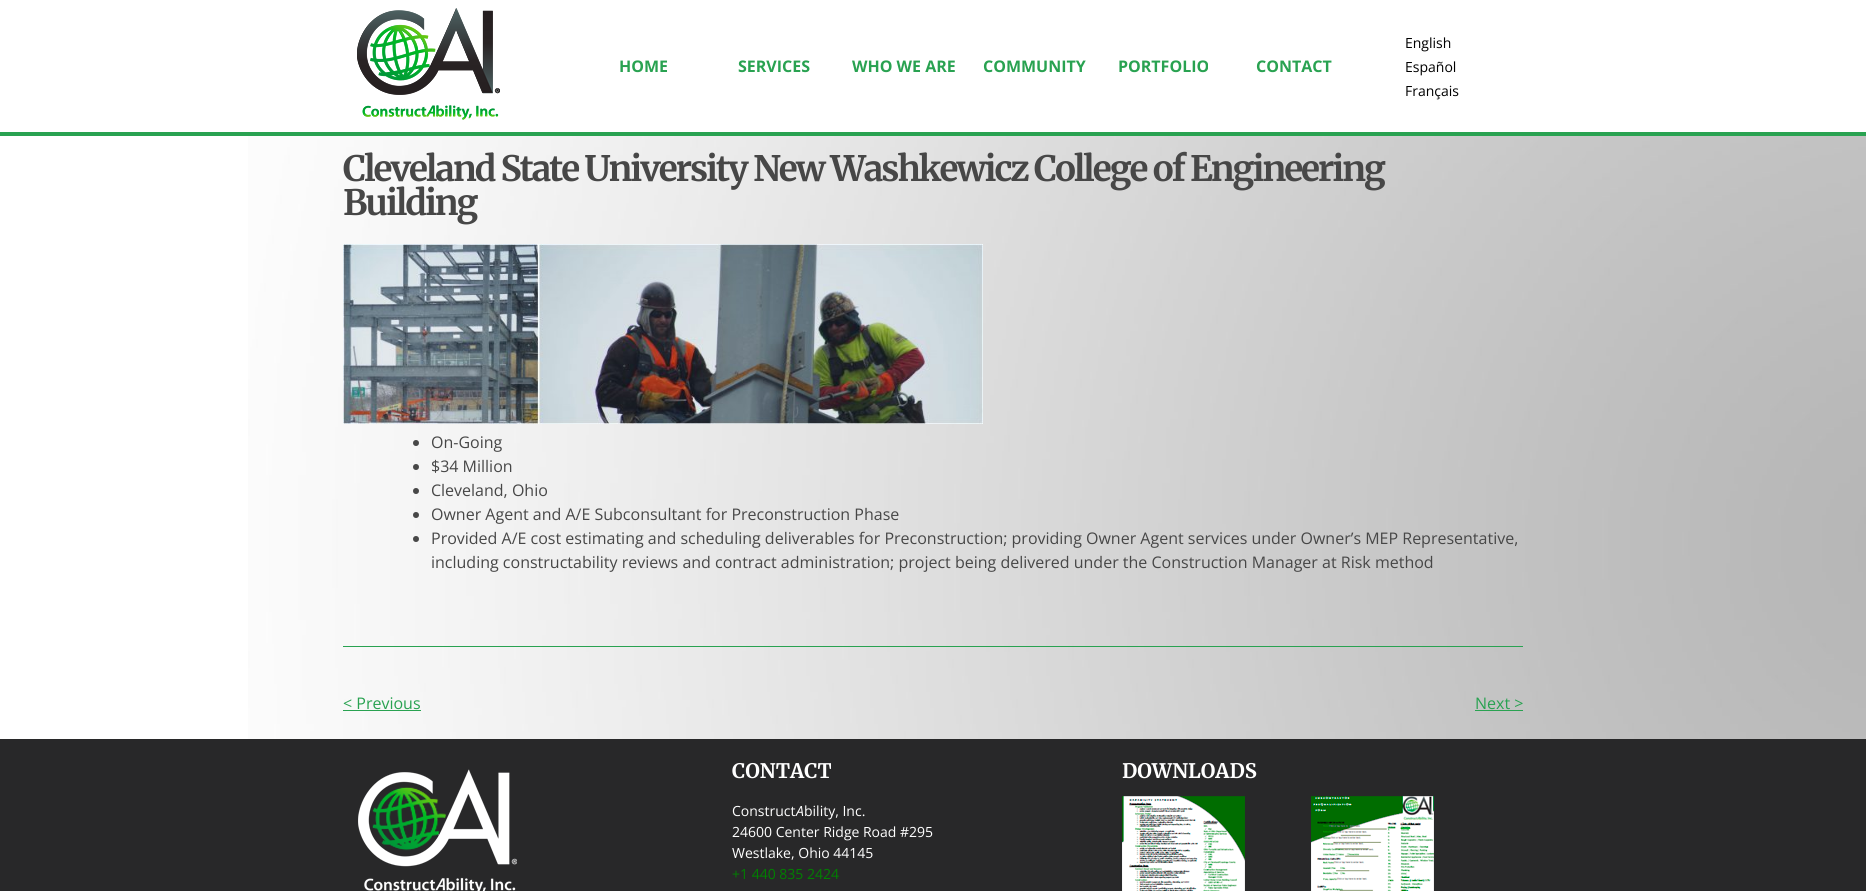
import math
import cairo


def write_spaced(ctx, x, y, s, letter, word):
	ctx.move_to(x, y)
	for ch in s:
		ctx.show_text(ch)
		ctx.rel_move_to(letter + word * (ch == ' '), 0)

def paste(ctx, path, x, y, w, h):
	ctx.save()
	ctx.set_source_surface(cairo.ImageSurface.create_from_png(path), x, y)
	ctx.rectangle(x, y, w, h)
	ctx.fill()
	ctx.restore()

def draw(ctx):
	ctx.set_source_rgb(1, 1, 1)
	ctx.paint()
	paste(ctx, 'media/1.png', 248, 136, 1618, 603)
	ctx.set_source_rgb(0.161, 0.635, 0.318)
	ctx.rectangle(0, 132, 1866, 4)
	ctx.fill()
	paste(ctx, 'media/2.png', 357, 8, 143, 112)
	ctx.select_font_face('Open Sans', cairo.FONT_SLANT_NORMAL, cairo.FONT_WEIGHT_BOLD)
	ctx.set_font_size(16)
	for x, y, s in [
		(619, 72, 'HOME'),
		(738, 72, 'SERVICES'),
		(852, 72, 'WHO WE ARE'),
		(983, 72, 'COMMUNITY'),
		(1118, 72, 'PORTFOLIO'),
		(1256, 72, 'CONTACT'),
	]:
		ctx.move_to(x, y)
		ctx.show_text(s)
	ctx.select_font_face('Open Sans')
	ctx.set_font_size(14)
	ctx.set_source_rgb(0, 0, 0)
	for x, y, s in [
		(1405, 48, 'English'),
		(1405, 72, 'Español'),
		(1405, 96, 'Français'),
	]:
		ctx.move_to(x, y)
		ctx.show_text(s)
	ctx.select_font_face('Merriweather', cairo.FONT_SLANT_NORMAL, cairo.FONT_WEIGHT_BOLD)
	ctx.set_font_size(35)
	ctx.set_source_rgb(0.278, 0.278, 0.278)
	write_spaced(ctx, 343, 181, 'Cleveland State University New Washkewicz College of Engineering', -2, 0)
	write_spaced(ctx, 343, 215, 'Building', -2, 0)
	paste(ctx, 'media/3.png', 343, 244, 640, 180)
	ctx.arc(416, 443, 3, 0, 2 * math.pi)
	ctx.fill()
	ctx.select_font_face('Open Sans')
	ctx.set_font_size(16)
	ctx.move_to(431, 448)
	ctx.show_text('On-Going')
	ctx.new_path()
	ctx.arc(416, 467, 3, 0, 2 * math.pi)
	ctx.fill()
	ctx.move_to(431, 472)
	ctx.show_text('$34 Million')
	ctx.new_path()
	ctx.arc(416, 491, 3, 0, 2 * math.pi)
	ctx.fill()
	ctx.move_to(431, 496)
	ctx.show_text('Cleveland, Ohio')
	ctx.new_path()
	ctx.arc(416, 515, 3, 0, 2 * math.pi)
	ctx.fill()
	ctx.move_to(431, 520)
	ctx.show_text('Owner Agent and A/E Subconsultant for Preconstruction Phase')
	ctx.new_path()
	ctx.arc(416, 539, 3, 0, 2 * math.pi)
	ctx.fill()
	ctx.move_to(431, 544)
	ctx.show_text('Provided A/E cost estimating and scheduling deliverables for Preconstruction; providing Owner Agent services under Owner’s MEP Representative,')
	ctx.move_to(431, 568)
	ctx.show_text('including constructability reviews and contract administration; project being delivered under the Construction Manager at Risk method')
	ctx.set_source_rgb(0.161, 0.635, 0.318)
	ctx.rectangle(343, 646, 1180, 1)
	ctx.fill()
	ctx.move_to(343, 709)
	ctx.show_text('< Previous')
	ctx.rectangle(343, 710, 78, 1)
	ctx.fill()
	ctx.move_to(1475, 709)
	ctx.show_text('Next >')
	ctx.rectangle(1475, 710, 48, 1)
	ctx.fill()
	ctx.set_source_rgb(0.157, 0.157, 0.161)
	ctx.rectangle(0, 739, 1866, 152)
	ctx.fill()
	paste(ctx, 'media/4.png', 358, 769, 159, 122)
	ctx.select_font_face('Merriweather', cairo.FONT_SLANT_NORMAL, cairo.FONT_WEIGHT_BOLD)
	ctx.set_font_size(20)
	ctx.set_source_rgb(1, 1, 1)
	ctx.move_to(732, 778)
	ctx.show_text('CONTACT')
	ctx.select_font_face('Open Sans')
	ctx.set_font_size(14)
	ctx.move_to(732, 816)
	ctx.show_text('Construct')
	ctx.select_font_face('Open Sans', cairo.FONT_SLANT_ITALIC)
	ctx.move_to(796, 816)
	ctx.show_text('A')
	ctx.select_font_face('Open Sans')
	for x, y, s in [
		(804, 816, 'bility, Inc.'),
		(732, 837, '24600 Center Ridge Road #295'),
		(732, 858, 'Westlake, Ohio 44145'),
	]:
		ctx.move_to(x, y)
		ctx.show_text(s)
	ctx.set_source_rgb(0, 0.502, 0)
	ctx.move_to(732, 879)
	ctx.show_text('+1 440 835 2424')
	ctx.select_font_face('Merriweather', cairo.FONT_SLANT_NORMAL, cairo.FONT_WEIGHT_BOLD)
	ctx.set_font_size(20)
	ctx.set_source_rgb(1, 1, 1)
	ctx.move_to(1122, 778)
	ctx.show_text('DOWNLOADS')
	paste(ctx, 'media/5.png', 1122, 796, 123, 95)
	paste(ctx, 'media/6.png', 1311, 796, 123, 95)


surface = cairo.ImageSurface(cairo.FORMAT_RGB24, 1866, 891)
ctx = cairo.Context(surface)
options = cairo.FontOptions()
options.set_hint_metrics(cairo.HINT_METRICS_OFF)
options.set_hint_style(cairo.HINT_STYLE_NONE)
ctx.set_font_options(options)
ctx.set_miter_limit(4)
draw(ctx)
surface.write_to_png('image.png')
